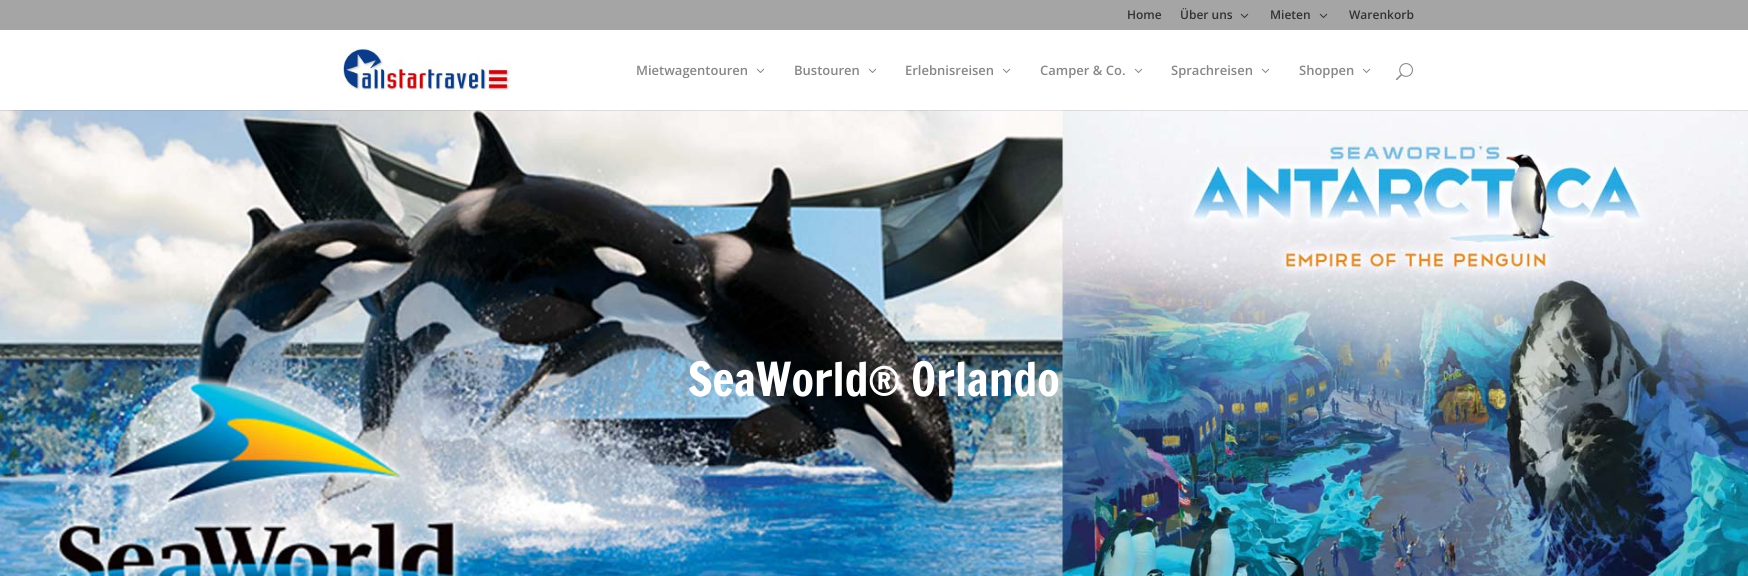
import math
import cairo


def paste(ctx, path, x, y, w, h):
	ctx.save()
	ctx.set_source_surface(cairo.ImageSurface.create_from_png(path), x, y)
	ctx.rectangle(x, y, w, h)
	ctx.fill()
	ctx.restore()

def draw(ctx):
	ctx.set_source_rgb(1, 1, 1)
	ctx.paint()
	ctx.set_source_rgb(0.647, 0.647, 0.647)
	ctx.rectangle(0, 0, 1748, 30)
	ctx.fill()
	ctx.select_font_face('Open Sans SemiBold')
	ctx.set_font_size(12)
	ctx.set_source_rgb(0.196, 0.196, 0.196)
	ctx.move_to(1127, 19)
	ctx.show_text('Home')
	ctx.move_to(1180, 19)
	ctx.show_text('Über uns')
	paste(ctx, 'media/1.png', 1240, 13, 9, 5)
	ctx.move_to(1270, 19)
	ctx.show_text('Mieten')
	paste(ctx, 'media/1.png', 1319, 13, 9, 5)
	ctx.move_to(1349, 19)
	ctx.show_text('Warenkorb')
	paste(ctx, 'media/5.png', 0, 110, 1748, 466)
	ctx.set_source_rgba(0, 0, 0, 0.1)
	ctx.rectangle(0, 110, 1748, 1)
	ctx.fill()
	paste(ctx, 'media/2.png', 338, 48, 173, 44)
	ctx.set_font_size(13)
	ctx.set_source_rgb(0.529, 0.529, 0.529)
	ctx.move_to(636, 75)
	ctx.show_text('Mietwagentouren')
	paste(ctx, 'media/3.png', 756, 68, 9, 5)
	ctx.move_to(794, 75)
	ctx.show_text('Bustouren')
	paste(ctx, 'media/3.png', 868, 68, 9, 5)
	ctx.move_to(905, 75)
	ctx.show_text('Erlebnisreisen')
	paste(ctx, 'media/3.png', 1002, 68, 9, 5)
	ctx.move_to(1040, 75)
	ctx.show_text('Camper & Co.')
	paste(ctx, 'media/3.png', 1134, 68, 9, 5)
	ctx.move_to(1171, 75)
	ctx.show_text('Sprachreisen')
	paste(ctx, 'media/3.png', 1261, 68, 9, 5)
	ctx.move_to(1299, 75)
	ctx.show_text('Shoppen')
	paste(ctx, 'media/3.png', 1362, 68, 9, 5)
	paste(ctx, 'media/4.png', 1396, 63, 17, 18)
	ctx.select_font_face('Francois One')
	ctx.set_font_size(46)
	ctx.set_source_rgb(1, 1, 1)
	ctx.move_to(688, 396)
	ctx.show_text('SeaWorld® Orlando')


surface = cairo.ImageSurface(cairo.FORMAT_RGB24, 1748, 576)
ctx = cairo.Context(surface)
options = cairo.FontOptions()
options.set_hint_metrics(cairo.HINT_METRICS_OFF)
options.set_hint_style(cairo.HINT_STYLE_NONE)
ctx.set_font_options(options)
ctx.set_miter_limit(4)
draw(ctx)
surface.write_to_png('image.png')
